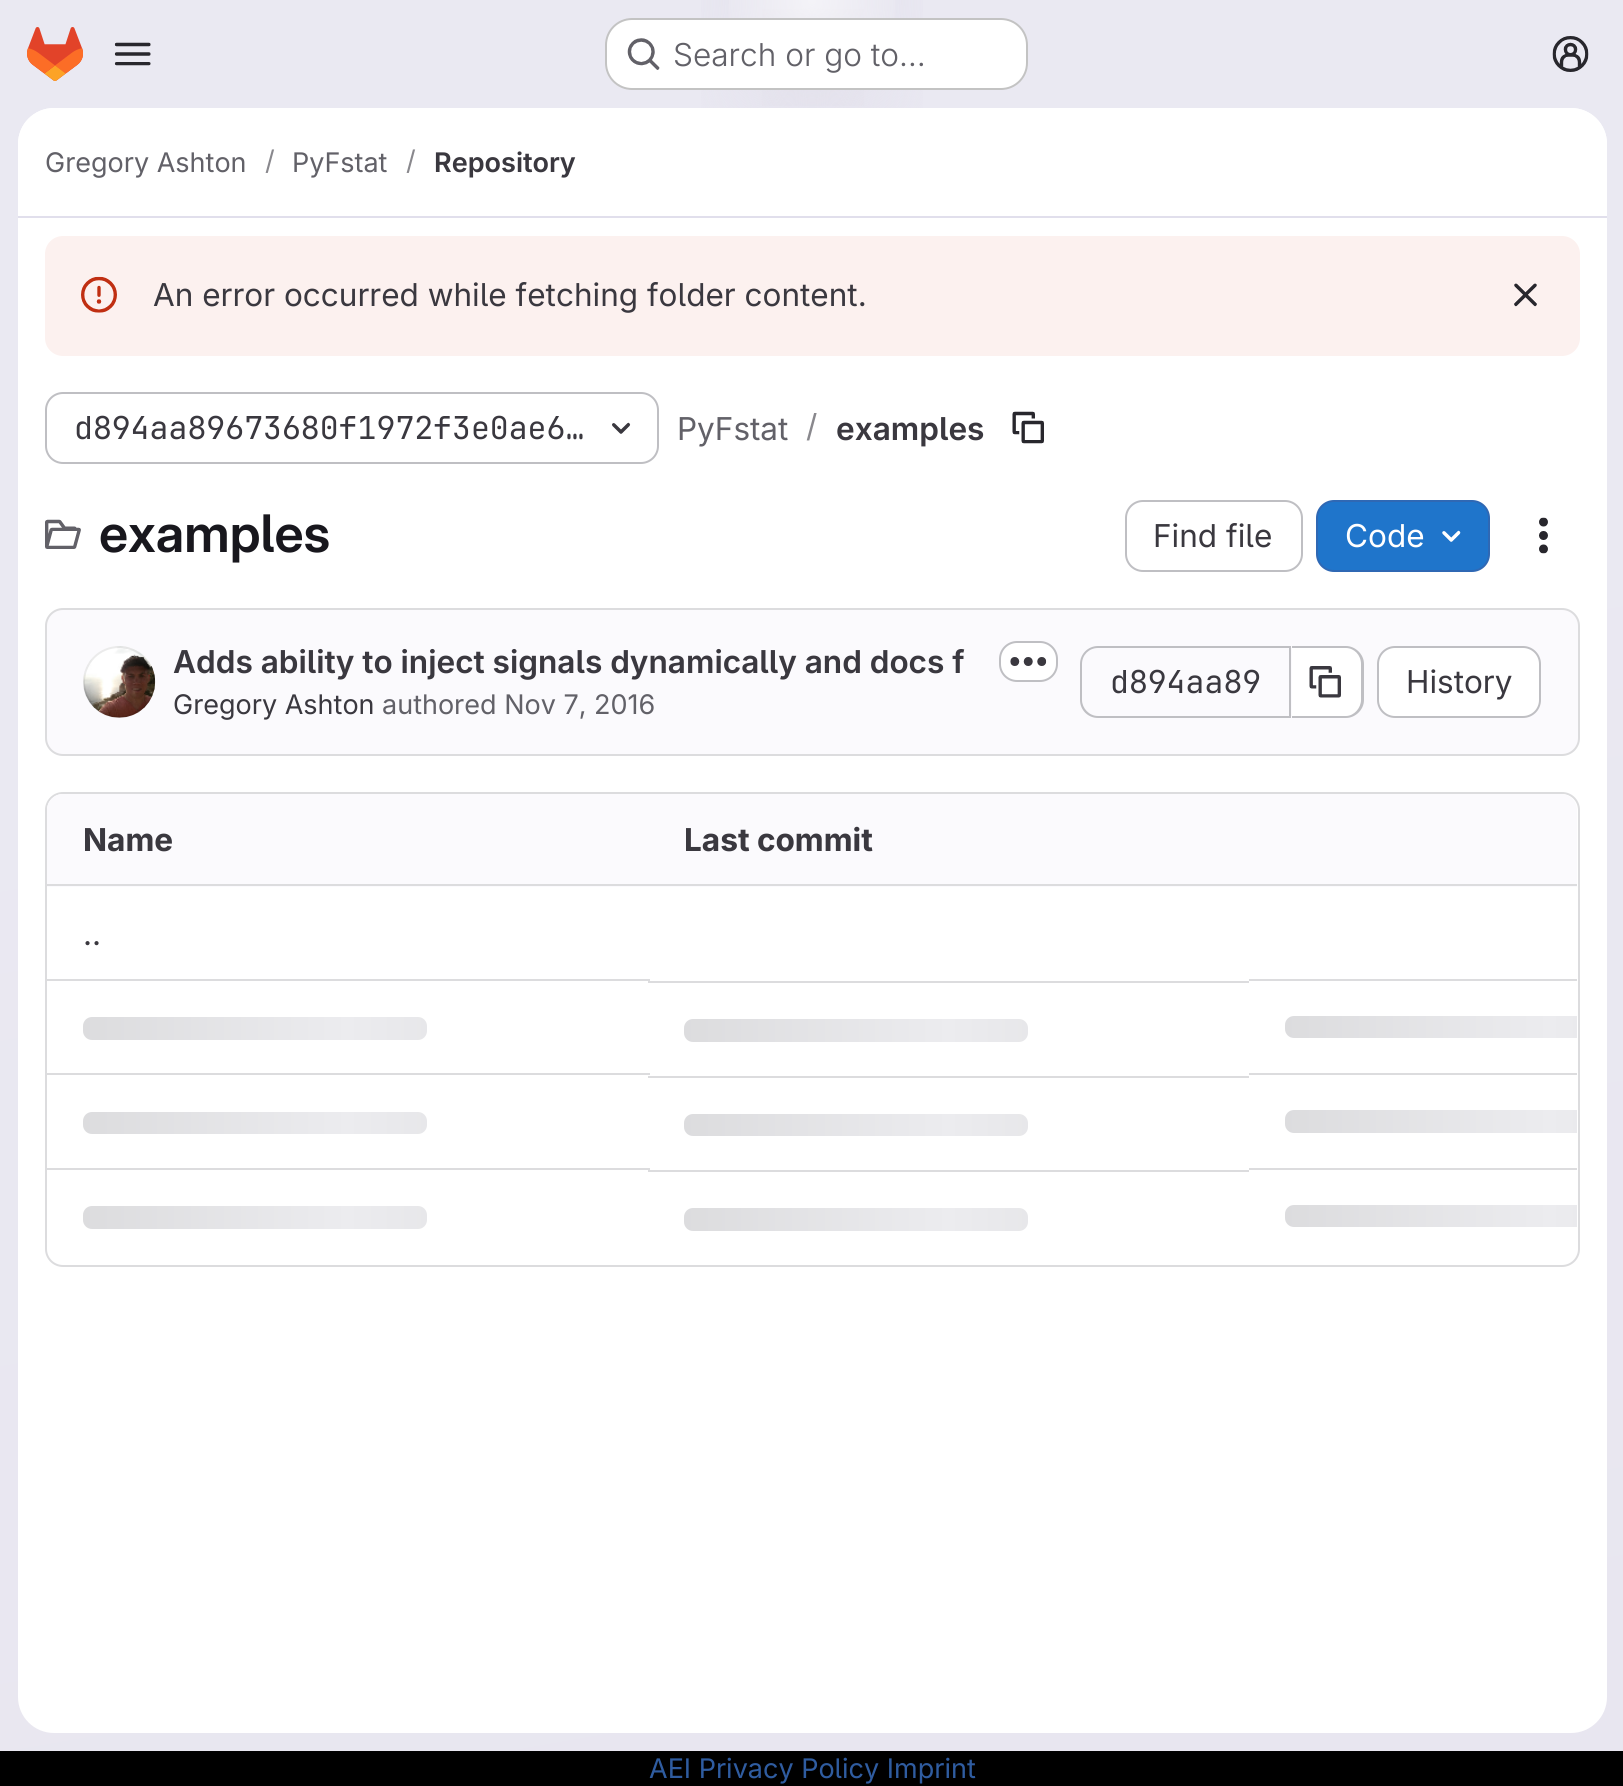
import math
import cairo


def round_path(ctx, x, y, w, h, r):
	ctx.new_sub_path()
	for i, (u, v) in enumerate([(x + w - r, y + h - r), (x + r, y + h - r), (x + r, y + r), (x + w - r, y + r)]):
		ctx.arc(u, v, r, i * math.pi / 2, (i + 1) * math.pi / 2)
	ctx.close_path()

def paste(ctx, path, x, y, w, h):
	ctx.save()
	ctx.set_source_surface(cairo.ImageSurface.create_from_png(path), x, y)
	ctx.rectangle(x, y, w, h)
	ctx.fill()
	ctx.restore()

def draw(ctx):
	ctx.set_source_rgb(1, 1, 1)
	ctx.paint()
	gradient = cairo.LinearGradient(989, 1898, 635, -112)
	gradient.add_color_stop_rgba(0, 0.91, 0.902, 0.941, 1)
	gradient.add_color_stop_rgba(0.7, 0.918, 0.914, 0.949, 1)
	ctx.set_source(gradient)
	ctx.rectangle(0, 0, 1623, 1751)
	ctx.fill()
	gradient = cairo.RadialGradient(0, 0, 0, 0, 0, 1)
	gradient.set_matrix(cairo.Matrix(1 / 812, 0, 0, 1 / 1787, -1 * 812 / 812, -1 * 0 / 1787))
	gradient.add_color_stop_rgba(0, 0.894, 0.886, 0.929, 1)
	gradient.add_color_stop_rgba(0.19, 0.894, 0.886, 0.929, 0)
	ctx.set_source(gradient)
	ctx.rectangle(701, 0, 222, 108)
	ctx.fill()
	gradient = cairo.RadialGradient(0, 0, 0, 0, 0, 1)
	gradient.set_matrix(cairo.Matrix(1 / 812, 0, 0, 1 / 1787, -1 * 812 / 812, -1 * 0 / 1787))
	gradient.add_color_stop_rgba(0, 0.894, 0.886, 0.925, 1)
	gradient.add_color_stop_rgba(0.14, 0.894, 0.886, 0.925, 0)
	ctx.set_source(gradient)
	ctx.rectangle(762, 9, 102, 97)
	ctx.fill()
	gradient = cairo.RadialGradient(812, 0, 0, 812, 0, 1962)
	gradient.add_color_stop_rgba(0, 1, 1, 1, 0.6)
	gradient.add_color_stop_rgba(0.05, 1, 1, 1, 0)
	ctx.set_source(gradient)
	ctx.rectangle(729, 0, 166, 18)
	ctx.fill()
	paste(ctx, 'media/1.png', 27, 27, 56, 54)
	paste(ctx, 'media/2.png', 114, 42, 37, 24)
	ctx.set_source_rgb(1, 1, 1)
	round_path(ctx, 605, 18, 423, 72, 27)
	ctx.fill()
	round_path(ctx, 606, 19, 421, 70, 26)
	ctx.set_source_rgba(0.02, 0.02, 0.024, 0.24)
	ctx.stroke()
	paste(ctx, 'media/3.png', 627, 38, 33, 32)
	ctx.select_font_face('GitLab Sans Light')
	ctx.set_font_size(31.5)
	ctx.set_source_rgb(0.384, 0.38, 0.408)
	ctx.move_to(673, 66)
	ctx.show_text('Search or go to…')
	paste(ctx, 'media/4.png', 1552, 36, 37, 36)
	ctx.set_source_rgb(1, 1, 1)
	round_path(ctx, 18, 108, 1589, 1625, 36)
	ctx.fill()
	ctx.new_path()
	ctx.move_to(54, 108)
	ctx.line_to(1571, 108)
	ctx.curve_to(1591, 108, 1607, 124, 1607, 144)
	ctx.line_to(1607, 218)
	ctx.line_to(18, 218)
	ctx.line_to(18, 144)
	ctx.curve_to(18, 124, 34, 108, 54, 108)
	ctx.close_path()
	ctx.fill()
	ctx.set_source_rgb(0.882, 0.875, 0.925)
	ctx.rectangle(18, 216, 1589, 2)
	ctx.fill()
	ctx.select_font_face('GitLab Sans')
	ctx.set_font_size(27)
	ctx.set_source_rgb(0.384, 0.38, 0.408)
	ctx.move_to(45, 172)
	ctx.show_text('Gregory Ashton')
	ctx.set_source_rgb(0.537, 0.533, 0.553)
	ctx.move_to(265, 170)
	ctx.show_text('/')
	ctx.set_source_rgb(0.384, 0.38, 0.408)
	ctx.move_to(292, 172)
	ctx.show_text('PyFstat')
	ctx.set_source_rgb(0.537, 0.533, 0.553)
	ctx.move_to(406, 170)
	ctx.show_text('/')
	ctx.select_font_face('GitLab Sans SemiBold')
	ctx.set_source_rgb(0.227, 0.22, 0.247)
	ctx.move_to(434, 172)
	ctx.show_text('Repository')
	ctx.set_source_rgb(0.988, 0.945, 0.937)
	round_path(ctx, 45, 236, 1535, 120, 18)
	ctx.fill()
	paste(ctx, 'media/5.png', 81, 276, 36, 37)
	ctx.select_font_face('GitLab Sans')
	ctx.set_font_size(31.5)
	ctx.set_source_rgb(0.227, 0.22, 0.247)
	ctx.move_to(153, 306)
	ctx.show_text('An error occurred while fetching folder content.')
	paste(ctx, 'media/6.png', 1514, 283, 23, 24)
	round_path(ctx, 46, 393, 612, 70, 17)
	ctx.set_source_rgb(0.749, 0.749, 0.765)
	ctx.stroke()
	ctx.select_font_face('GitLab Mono')
	ctx.set_source_rgb(0.227, 0.22, 0.247)
	ctx.move_to(74, 439)
	ctx.show_text('d894aa89673680f1972f3e0ae6…')
	paste(ctx, 'media/7.png', 612, 422, 19, 12)
	ctx.select_font_face('GitLab Sans')
	ctx.set_source_rgb(0.384, 0.38, 0.408)
	ctx.move_to(677, 440)
	ctx.show_text('PyFstat')
	ctx.set_source_rgb(0.537, 0.533, 0.553)
	ctx.move_to(806, 437)
	ctx.show_text('/')
	ctx.select_font_face('GitLab Sans SemiBold')
	ctx.set_source_rgb(0.227, 0.22, 0.247)
	ctx.move_to(836, 440)
	ctx.show_text('examples')
	paste(ctx, 'media/8.png', 1012, 411, 32, 33)
	paste(ctx, 'media/9.png', 45, 519, 36, 30)
	ctx.select_font_face('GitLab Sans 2 SemiBold')
	ctx.set_font_size(51.75)
	ctx.set_source_rgb(0.094, 0.09, 0.114)
	ctx.move_to(99, 552)
	ctx.show_text('examples')
	round_path(ctx, 1126, 501, 176, 70, 17)
	ctx.set_source_rgb(0.749, 0.749, 0.765)
	ctx.stroke()
	ctx.select_font_face('GitLab Sans')
	ctx.set_font_size(31.5)
	ctx.set_source_rgb(0.227, 0.22, 0.247)
	ctx.move_to(1153, 547)
	ctx.show_text('Find file')
	ctx.set_source_rgb(0.122, 0.459, 0.796)
	round_path(ctx, 1317, 501, 172, 70, 17)
	ctx.fill_preserve()
	ctx.set_source_rgb(0.184, 0.408, 0.706)
	ctx.stroke()
	ctx.set_source_rgb(1, 1, 1)
	ctx.move_to(1345, 547)
	ctx.show_text('Code')
	paste(ctx, 'media/10.png', 1442, 530, 19, 12)
	paste(ctx, 'media/11.png', 1539, 517, 9, 37)
	ctx.set_source_rgb(0.984, 0.98, 0.992)
	round_path(ctx, 46, 609, 1533, 146, 17)
	ctx.fill_preserve()
	ctx.set_source_rgb(0.863, 0.863, 0.871)
	ctx.stroke()
	paste(ctx, 'media/12.png', 83, 646, 73, 72)
	ctx.arc(119, 682, 35, 0, 2 * math.pi)
	ctx.set_source_rgba(0.02, 0.02, 0.024, 0.08)
	ctx.stroke()
	ctx.select_font_face('GitLab Sans SemiBold')
	ctx.set_source_rgb(0.227, 0.22, 0.247)
	ctx.move_to(173, 673)
	ctx.show_text('Adds ability to inject signals dynamically and docs f')
	ctx.set_source_rgb(1, 1, 1)
	round_path(ctx, 1000, 642, 57, 39, 17)
	ctx.fill_preserve()
	ctx.set_source_rgb(0.749, 0.749, 0.765)
	ctx.stroke()
	paste(ctx, 'media/13.png', 1010, 657, 37, 9)
	ctx.select_font_face('GitLab Sans')
	ctx.set_font_size(27)
	ctx.set_source_rgb(0.227, 0.22, 0.247)
	ctx.move_to(173, 714)
	ctx.show_text('Gregory Ashton')
	ctx.set_source_rgb(0.384, 0.38, 0.408)
	ctx.move_to(382, 714)
	ctx.show_text('authored Nov 7, 2016')
	ctx.set_source_rgb(0.749, 0.749, 0.765)
	ctx.set_fill_rule(cairo.FILL_RULE_EVEN_ODD)
	ctx.new_path()
	ctx.move_to(1098, 646)
	ctx.line_to(1289, 646)
	ctx.line_to(1289, 718)
	ctx.line_to(1098, 718)
	ctx.curve_to(1088, 718, 1080, 710, 1080, 700)
	ctx.line_to(1080, 664)
	ctx.curve_to(1080, 654, 1088, 646, 1098, 646)
	ctx.close_path()
	ctx.move_to(1098, 648)
	ctx.line_to(1289, 648)
	ctx.line_to(1289, 716)
	ctx.line_to(1098, 716)
	ctx.curve_to(1089, 716, 1082, 708, 1082, 700)
	ctx.line_to(1082, 664)
	ctx.curve_to(1082, 655, 1089, 648, 1098, 648)
	ctx.close_path()
	ctx.fill()
	ctx.select_font_face('GitLab Mono')
	ctx.set_font_size(31.5)
	ctx.set_source_rgb(0.227, 0.22, 0.247)
	ctx.move_to(1110, 693)
	ctx.show_text('d894aa89')
	ctx.set_source_rgb(1, 1, 1)
	ctx.new_path()
	ctx.move_to(1292, 648)
	ctx.line_to(1345, 648)
	ctx.curve_to(1354, 648, 1361, 655, 1361, 664)
	ctx.line_to(1361, 700)
	ctx.curve_to(1361, 709, 1354, 716, 1345, 716)
	ctx.line_to(1292, 716)
	ctx.close_path()
	ctx.fill()
	ctx.set_source_rgb(0.749, 0.749, 0.765)
	ctx.new_path()
	ctx.move_to(1292, 646)
	ctx.line_to(1346, 646)
	ctx.curve_to(1355, 646, 1364, 654, 1364, 664)
	ctx.line_to(1364, 700)
	ctx.curve_to(1364, 710, 1355, 718, 1346, 718)
	ctx.line_to(1292, 718)
	ctx.close_path()
	ctx.move_to(1292, 648)
	ctx.line_to(1346, 648)
	ctx.curve_to(1354, 648, 1361, 655, 1361, 664)
	ctx.line_to(1361, 700)
	ctx.curve_to(1361, 708, 1354, 716, 1346, 716)
	ctx.line_to(1292, 716)
	ctx.close_path()
	ctx.fill()
	ctx.rectangle(1289, 646, 2, 72)
	ctx.fill()
	paste(ctx, 'media/14.png', 1309, 666, 32, 32)
	ctx.set_source_rgb(1, 1, 1)
	round_path(ctx, 1378, 647, 162, 70, 17)
	ctx.fill_preserve()
	ctx.set_source_rgb(0.749, 0.749, 0.765)
	ctx.stroke()
	ctx.select_font_face('GitLab Sans')
	ctx.set_source_rgb(0.227, 0.22, 0.247)
	ctx.move_to(1406, 693)
	ctx.show_text('History')
	round_path(ctx, 46, 793, 1533, 473, 17)
	ctx.set_source_rgb(0.863, 0.863, 0.871)
	ctx.stroke()
	ctx.set_source_rgb(0.984, 0.98, 0.992)
	ctx.new_path()
	ctx.move_to(63, 794)
	ctx.line_to(648, 794)
	ctx.line_to(648, 887)
	ctx.line_to(47, 887)
	ctx.line_to(47, 810)
	ctx.curve_to(47, 801, 54, 794, 63, 794)
	ctx.close_path()
	ctx.fill()
	ctx.select_font_face('GitLab Sans', cairo.FONT_SLANT_NORMAL, cairo.FONT_WEIGHT_BOLD)
	ctx.set_source_rgb(0.227, 0.22, 0.247)
	ctx.move_to(83, 851)
	ctx.show_text('Name')
	ctx.set_source_rgb(0.984, 0.98, 0.992)
	ctx.rectangle(648, 794, 601, 93)
	ctx.fill()
	ctx.set_source_rgb(0.227, 0.22, 0.247)
	ctx.move_to(684, 851)
	ctx.show_text('Last commit')
	ctx.set_source_rgb(0.984, 0.98, 0.992)
	ctx.new_path()
	ctx.move_to(1249, 794)
	ctx.line_to(1561, 794)
	ctx.curve_to(1570, 794, 1577, 801, 1577, 810)
	ctx.line_to(1577, 887)
	ctx.line_to(1249, 887)
	ctx.close_path()
	ctx.fill()
	ctx.set_source_rgb(0.863, 0.863, 0.871)
	ctx.rectangle(47, 884, 1530, 2)
	ctx.fill()
	ctx.select_font_face('GitLab Sans')
	ctx.set_source_rgb(0.227, 0.22, 0.247)
	ctx.move_to(83, 945)
	ctx.show_text('..')
	ctx.set_source_rgb(0.863, 0.863, 0.871)
	ctx.rectangle(47, 979, 603, 2)
	ctx.fill()
	gradient = cairo.LinearGradient(83, 1017, 612, 1017)
	gradient.add_color_stop_rgba(0, 0.863, 0.863, 0.871, 1)
	gradient.add_color_stop_rgba(0.5, 0.925, 0.925, 0.937, 1)
	gradient.add_color_stop_rgba(1, 0.863, 0.863, 0.871, 1)
	ctx.set_source(gradient)
	round_path(ctx, 83, 1017, 344, 23, 9)
	ctx.fill()
	ctx.set_source_rgb(0.863, 0.863, 0.871)
	ctx.rectangle(648, 981, 601, 2)
	ctx.fill()
	gradient = cairo.LinearGradient(684, 1019, 1213, 1019)
	gradient.add_color_stop_rgba(0, 0.863, 0.863, 0.871, 1)
	gradient.add_color_stop_rgba(0.5, 0.925, 0.925, 0.937, 1)
	gradient.add_color_stop_rgba(1, 0.863, 0.863, 0.871, 1)
	ctx.set_source(gradient)
	round_path(ctx, 684, 1019, 344, 23, 9)
	ctx.fill()
	ctx.set_source_rgb(0.863, 0.863, 0.871)
	ctx.rectangle(1249, 979, 328, 2)
	ctx.fill()
	gradient = cairo.LinearGradient(1285, 1016, 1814, 1016)
	gradient.add_color_stop_rgba(0, 0.863, 0.863, 0.871, 1)
	gradient.add_color_stop_rgba(0.5, 0.925, 0.925, 0.937, 1)
	gradient.add_color_stop_rgba(1, 0.863, 0.863, 0.871, 1)
	ctx.set_source(gradient)
	ctx.new_path()
	ctx.move_to(1294, 1016)
	ctx.line_to(1577, 1016)
	ctx.line_to(1577, 1038)
	ctx.line_to(1294, 1038)
	ctx.curve_to(1289, 1038, 1285, 1034, 1285, 1029)
	ctx.line_to(1285, 1025)
	ctx.curve_to(1285, 1020, 1289, 1016, 1294, 1016)
	ctx.close_path()
	ctx.fill()
	ctx.set_source_rgb(0.863, 0.863, 0.871)
	ctx.rectangle(47, 1073, 603, 2)
	ctx.fill()
	gradient = cairo.LinearGradient(83, 1112, 612, 1112)
	gradient.add_color_stop_rgba(0, 0.863, 0.863, 0.871, 1)
	gradient.add_color_stop_rgba(0.5, 0.925, 0.925, 0.937, 1)
	gradient.add_color_stop_rgba(1, 0.863, 0.863, 0.871, 1)
	ctx.set_source(gradient)
	round_path(ctx, 83, 1112, 344, 22, 9)
	ctx.fill()
	ctx.set_source_rgb(0.863, 0.863, 0.871)
	ctx.rectangle(648, 1076, 601, 2)
	ctx.fill()
	gradient = cairo.LinearGradient(684, 1114, 1213, 1114)
	gradient.add_color_stop_rgba(0, 0.863, 0.863, 0.871, 1)
	gradient.add_color_stop_rgba(0.5, 0.925, 0.925, 0.937, 1)
	gradient.add_color_stop_rgba(1, 0.863, 0.863, 0.871, 1)
	ctx.set_source(gradient)
	round_path(ctx, 684, 1114, 344, 22, 9)
	ctx.fill()
	ctx.set_source_rgb(0.863, 0.863, 0.871)
	ctx.rectangle(1249, 1073, 328, 2)
	ctx.fill()
	gradient = cairo.LinearGradient(1285, 1110, 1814, 1110)
	gradient.add_color_stop_rgba(0, 0.863, 0.863, 0.871, 1)
	gradient.add_color_stop_rgba(0.5, 0.925, 0.925, 0.937, 1)
	gradient.add_color_stop_rgba(1, 0.863, 0.863, 0.871, 1)
	ctx.set_source(gradient)
	ctx.new_path()
	ctx.move_to(1294, 1110)
	ctx.line_to(1577, 1110)
	ctx.line_to(1577, 1133)
	ctx.line_to(1294, 1133)
	ctx.curve_to(1289, 1133, 1285, 1129, 1285, 1124)
	ctx.line_to(1285, 1119)
	ctx.curve_to(1285, 1114, 1289, 1110, 1294, 1110)
	ctx.close_path()
	ctx.fill()
	ctx.set_source_rgb(0.863, 0.863, 0.871)
	ctx.rectangle(47, 1168, 603, 2)
	ctx.fill()
	gradient = cairo.LinearGradient(83, 1206, 612, 1206)
	gradient.add_color_stop_rgba(0, 0.863, 0.863, 0.871, 1)
	gradient.add_color_stop_rgba(0.5, 0.925, 0.925, 0.937, 1)
	gradient.add_color_stop_rgba(1, 0.863, 0.863, 0.871, 1)
	ctx.set_source(gradient)
	round_path(ctx, 83, 1206, 344, 23, 9)
	ctx.fill()
	ctx.set_source_rgb(0.863, 0.863, 0.871)
	ctx.rectangle(648, 1170, 601, 2)
	ctx.fill()
	gradient = cairo.LinearGradient(684, 1208, 1213, 1208)
	gradient.add_color_stop_rgba(0, 0.863, 0.863, 0.871, 1)
	gradient.add_color_stop_rgba(0.5, 0.925, 0.925, 0.937, 1)
	gradient.add_color_stop_rgba(1, 0.863, 0.863, 0.871, 1)
	ctx.set_source(gradient)
	round_path(ctx, 684, 1208, 344, 23, 9)
	ctx.fill()
	ctx.set_source_rgb(0.863, 0.863, 0.871)
	ctx.rectangle(1249, 1168, 328, 2)
	ctx.fill()
	gradient = cairo.LinearGradient(1285, 1205, 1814, 1205)
	gradient.add_color_stop_rgba(0, 0.863, 0.863, 0.871, 1)
	gradient.add_color_stop_rgba(0.5, 0.925, 0.925, 0.937, 1)
	gradient.add_color_stop_rgba(1, 0.863, 0.863, 0.871, 1)
	ctx.set_source(gradient)
	ctx.new_path()
	ctx.move_to(1294, 1205)
	ctx.line_to(1577, 1205)
	ctx.line_to(1577, 1227)
	ctx.line_to(1294, 1227)
	ctx.curve_to(1289, 1227, 1285, 1223, 1285, 1218)
	ctx.line_to(1285, 1214)
	ctx.curve_to(1285, 1209, 1289, 1205, 1294, 1205)
	ctx.close_path()
	ctx.fill()
	ctx.set_source_rgb(0, 0, 0)
	ctx.rectangle(0, 1751, 1623, 35)
	ctx.fill()
	ctx.set_font_size(27)
	ctx.set_source_rgb(0.184, 0.361, 0.627)
	ctx.move_to(649, 1778)
	ctx.show_text('AEI Privacy Policy Imprint')


surface = cairo.ImageSurface(cairo.FORMAT_RGB24, 1623, 1786)
ctx = cairo.Context(surface)
options = cairo.FontOptions()
options.set_hint_metrics(cairo.HINT_METRICS_OFF)
options.set_hint_style(cairo.HINT_STYLE_NONE)
ctx.set_font_options(options)
ctx.set_miter_limit(4)
draw(ctx)
surface.write_to_png('image.png')
